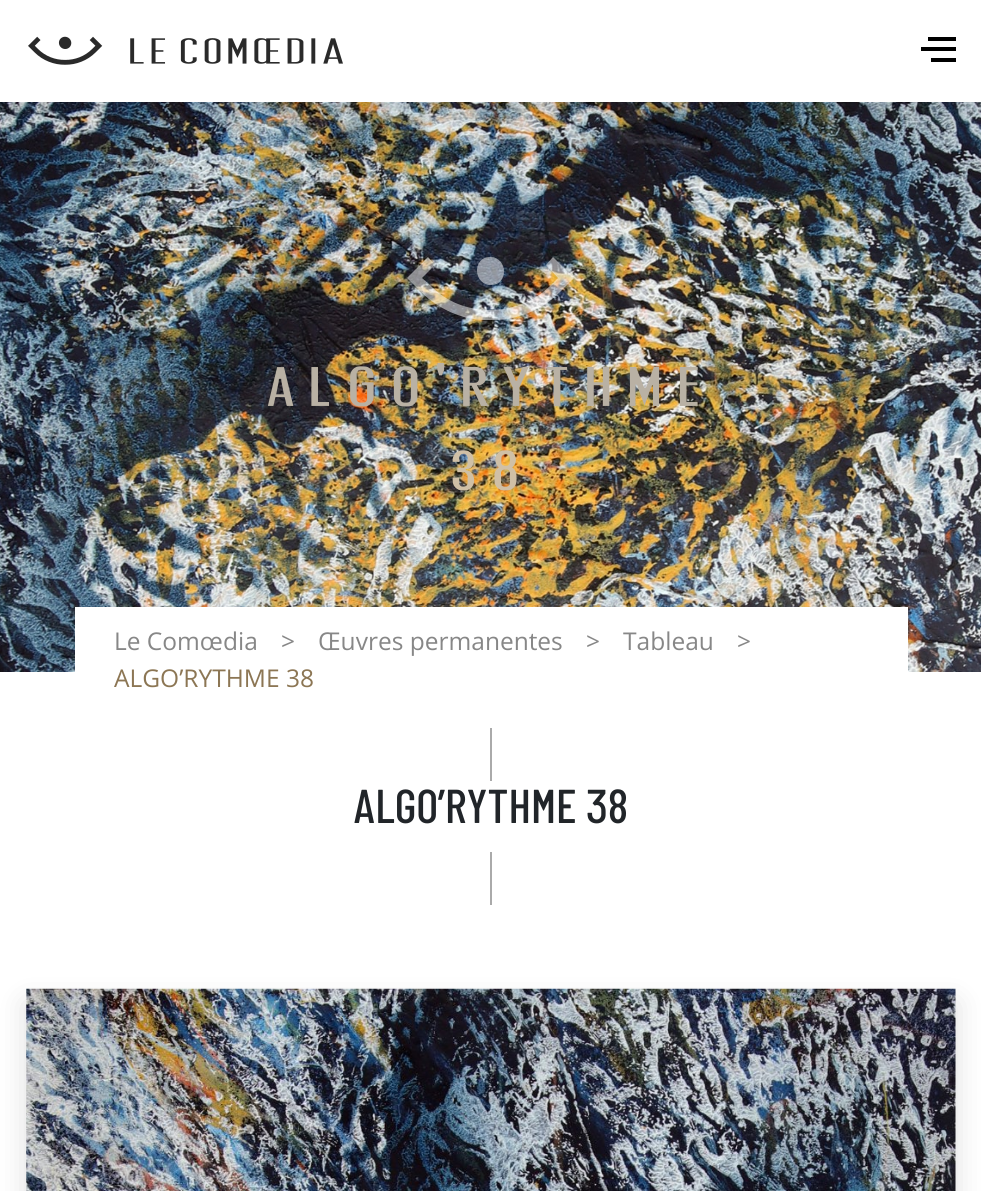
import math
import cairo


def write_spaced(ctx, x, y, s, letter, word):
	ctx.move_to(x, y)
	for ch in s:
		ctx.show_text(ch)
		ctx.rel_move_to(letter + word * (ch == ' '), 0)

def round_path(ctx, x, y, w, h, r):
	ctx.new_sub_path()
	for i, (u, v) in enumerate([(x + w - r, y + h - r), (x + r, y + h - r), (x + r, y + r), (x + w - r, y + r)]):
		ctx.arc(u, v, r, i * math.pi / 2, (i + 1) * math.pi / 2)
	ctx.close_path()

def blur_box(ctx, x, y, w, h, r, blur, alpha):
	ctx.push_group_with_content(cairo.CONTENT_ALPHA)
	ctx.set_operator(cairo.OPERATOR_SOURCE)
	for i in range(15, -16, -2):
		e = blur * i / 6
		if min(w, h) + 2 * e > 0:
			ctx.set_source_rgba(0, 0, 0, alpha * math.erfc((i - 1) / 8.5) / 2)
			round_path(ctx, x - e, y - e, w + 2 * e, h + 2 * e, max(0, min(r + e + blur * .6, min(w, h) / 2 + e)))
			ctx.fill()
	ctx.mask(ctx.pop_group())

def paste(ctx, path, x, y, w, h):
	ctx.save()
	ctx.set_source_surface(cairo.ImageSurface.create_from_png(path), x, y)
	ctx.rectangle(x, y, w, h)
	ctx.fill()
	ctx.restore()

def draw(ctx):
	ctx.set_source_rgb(1, 1, 1)
	ctx.paint()
	paste(ctx, 'media/2.png', 0, 102, 981, 570)
	ctx.set_source_rgb(0, 0, 0)
	blur_box(ctx, 14, 21, 957, 77, 0, 22, 0.2)
	ctx.set_source_rgb(1, 1, 1)
	ctx.rectangle(0, 0, 981, 102)
	ctx.fill()
	paste(ctx, 'media/1.png', 28, 36, 315, 29)
	ctx.set_source_rgb(0, 0, 0)
	ctx.rectangle(928, 37, 28, 4)
	ctx.rectangle(921, 47, 35, 4)
	ctx.rectangle(931, 58, 25, 4)
	ctx.fill()
	ctx.set_source_rgba(1, 1, 1, 0.5)
	ctx.set_fill_rule(cairo.FILL_RULE_EVEN_ODD)
	ctx.new_path()
	ctx.move_to(553, 257)
	ctx.line_to(546, 265)
	ctx.line_to(558, 278)
	ctx.line_to(551, 285)
	ctx.curve_to(534, 302, 512, 310, 490, 310)
	ctx.curve_to(468, 310, 446, 302, 430, 285)
	ctx.line_to(422, 278)
	ctx.line_to(435, 265)
	ctx.line_to(428, 257)
	ctx.line_to(407, 278)
	ctx.line_to(422, 293)
	ctx.curve_to(441, 311, 466, 321, 490, 320)
	ctx.curve_to(515, 321, 540, 311, 559, 293)
	ctx.line_to(574, 278)
	ctx.close_path()
	ctx.move_to(490, 257)
	ctx.curve_to(472, 257, 473, 285, 491, 285)
	ctx.curve_to(509, 285, 508, 257, 490, 257)
	ctx.close_path()
	ctx.fill()
	ctx.select_font_face('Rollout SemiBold')
	ctx.set_font_size(56)
	ctx.set_source_rgb(0.725, 0.694, 0.643)
	write_spaced(ctx, 267, 406, 'ALGO\'RYTHME', 14, 0)
	ctx.set_source_rgb(0.816, 0.753, 0.651)
	write_spaced(ctx, 449, 490, '38', 14, 0)
	ctx.set_source_rgb(1, 1, 1)
	ctx.rectangle(75, 607, 833, 65)
	ctx.fill()
	ctx.select_font_face('Open Sans')
	ctx.set_font_size(24.5)
	ctx.set_source_rgb(0.529, 0.529, 0.529)
	for x, y, s in [
		(114, 650, 'Le Comœdia'),
		(281, 650, '>'),
		(318, 650, 'Œuvres permanentes'),
		(586, 650, '>'),
		(623, 650, 'Tableau'),
		(737, 650, '>'),
	]:
		ctx.move_to(x, y)
		ctx.show_text(s)
	ctx.set_source_rgb(0.549, 0.463, 0.329)
	ctx.move_to(114, 687)
	ctx.show_text('ALGO’RYTHME 38')
	ctx.set_source_rgb(0.667, 0.667, 0.667)
	ctx.rectangle(490, 728, 2, 53)
	ctx.fill()
	ctx.select_font_face('Barlow Condensed Medium')
	ctx.set_font_size(47.5)
	ctx.set_source_rgb(0.129, 0.145, 0.161)
	ctx.move_to(353, 823)
	ctx.show_text('ALGO’RYTHME 38')
	ctx.set_source_rgb(0.667, 0.667, 0.667)
	ctx.rectangle(490, 852, 2, 53)
	ctx.fill()
	ctx.set_source_rgb(0.165, 0.165, 0.165)
	blur_box(ctx, 26, 1003, 930, 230, 0, 14, 0.15)
	paste(ctx, 'media/3.png', 26, 988, 930, 203)


surface = cairo.ImageSurface(cairo.FORMAT_RGB24, 981, 1191)
ctx = cairo.Context(surface)
options = cairo.FontOptions()
options.set_hint_metrics(cairo.HINT_METRICS_OFF)
options.set_hint_style(cairo.HINT_STYLE_NONE)
ctx.set_font_options(options)
ctx.set_miter_limit(4)
draw(ctx)
surface.write_to_png('image.png')
